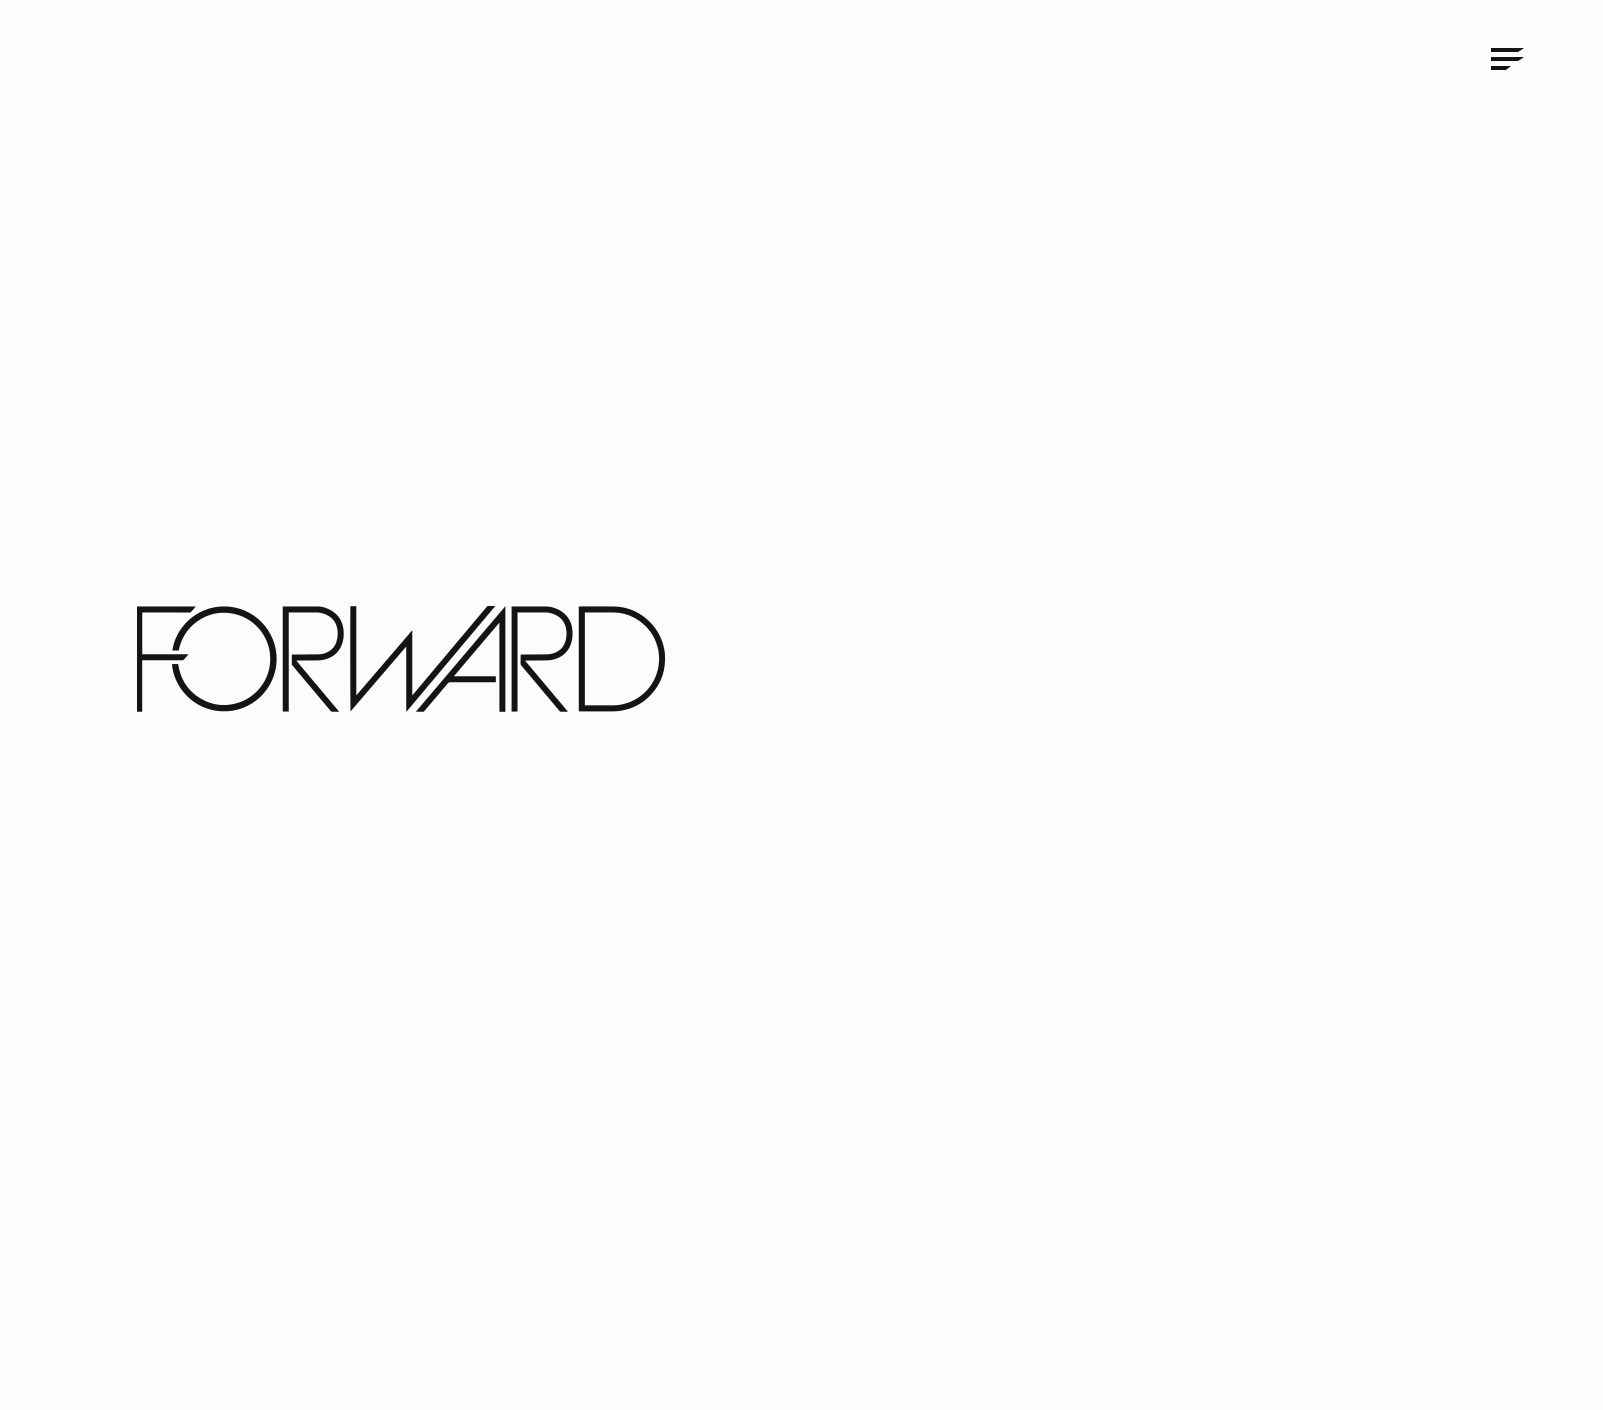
import math
import cairo


def paste(ctx, path, x, y, w, h):
	ctx.save()
	ctx.set_source_surface(cairo.ImageSurface.create_from_png(path), x, y)
	ctx.rectangle(x, y, w, h)
	ctx.fill()
	ctx.restore()

def draw(ctx):
	ctx.set_source_rgb(0.988, 0.988, 0.984)
	ctx.paint()
	ctx.set_source_rgb(0.071, 0.078, 0.082)
	ctx.new_path()
	ctx.move_to(1491, 48)
	ctx.line_to(1523.5, 48)
	ctx.line_to(1523.5, 48.5)
	ctx.line_to(1518, 52)
	ctx.line_to(1491, 52)
	ctx.close_path()
	ctx.move_to(1491, 57)
	ctx.line_to(1523.5, 57)
	ctx.line_to(1523.5, 57.5)
	ctx.line_to(1518, 61)
	ctx.line_to(1491, 61)
	ctx.close_path()
	ctx.move_to(1491, 66)
	ctx.line_to(1511, 66)
	ctx.line_to(1506, 70)
	ctx.line_to(1491, 70)
	ctx.close_path()
	ctx.fill()
	paste(ctx, 'media/1.png', 137, 606, 529, 106)


surface = cairo.ImageSurface(cairo.FORMAT_RGB24, 1603, 1410)
ctx = cairo.Context(surface)
options = cairo.FontOptions()
options.set_hint_metrics(cairo.HINT_METRICS_OFF)
options.set_hint_style(cairo.HINT_STYLE_NONE)
ctx.set_font_options(options)
ctx.set_miter_limit(4)
draw(ctx)
surface.write_to_png('image.png')
